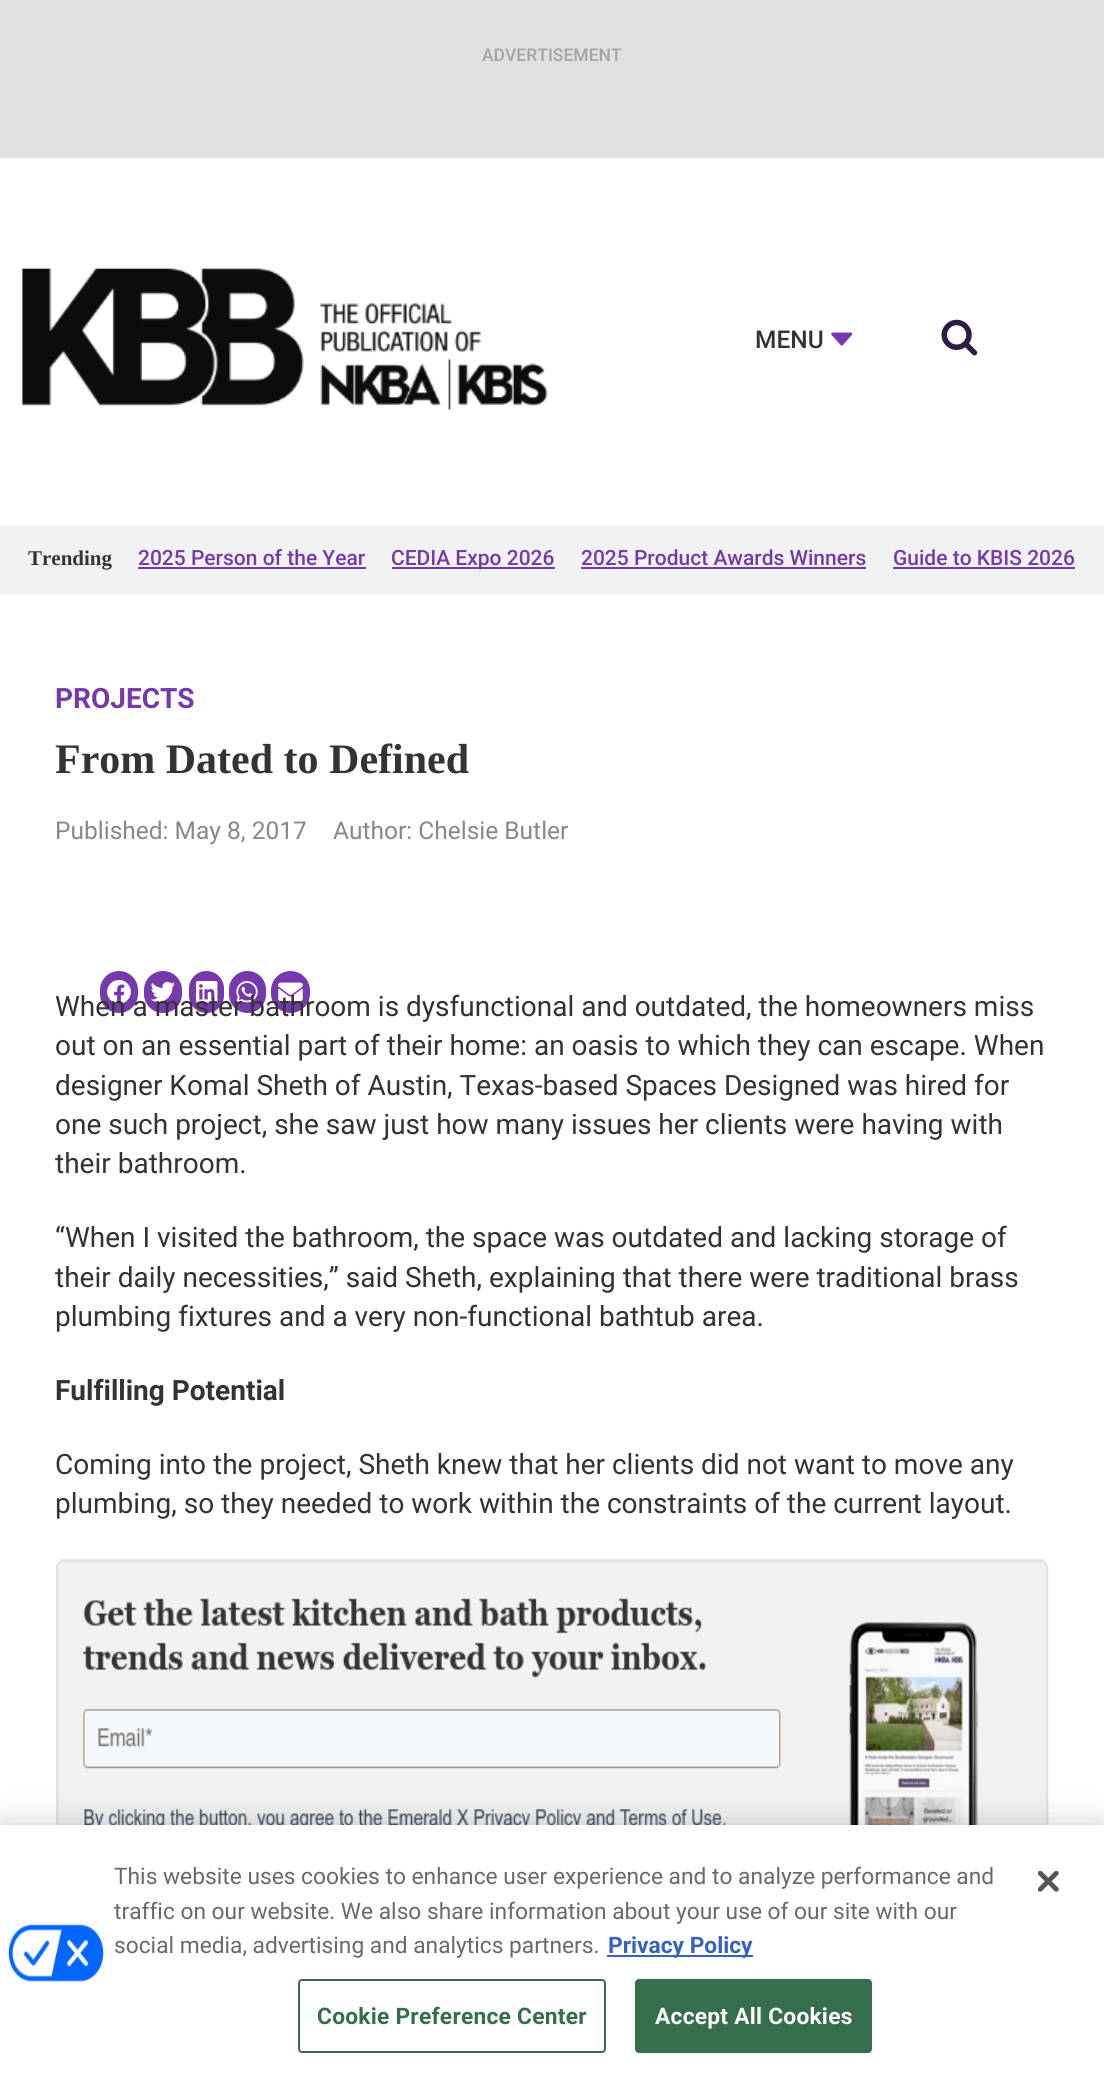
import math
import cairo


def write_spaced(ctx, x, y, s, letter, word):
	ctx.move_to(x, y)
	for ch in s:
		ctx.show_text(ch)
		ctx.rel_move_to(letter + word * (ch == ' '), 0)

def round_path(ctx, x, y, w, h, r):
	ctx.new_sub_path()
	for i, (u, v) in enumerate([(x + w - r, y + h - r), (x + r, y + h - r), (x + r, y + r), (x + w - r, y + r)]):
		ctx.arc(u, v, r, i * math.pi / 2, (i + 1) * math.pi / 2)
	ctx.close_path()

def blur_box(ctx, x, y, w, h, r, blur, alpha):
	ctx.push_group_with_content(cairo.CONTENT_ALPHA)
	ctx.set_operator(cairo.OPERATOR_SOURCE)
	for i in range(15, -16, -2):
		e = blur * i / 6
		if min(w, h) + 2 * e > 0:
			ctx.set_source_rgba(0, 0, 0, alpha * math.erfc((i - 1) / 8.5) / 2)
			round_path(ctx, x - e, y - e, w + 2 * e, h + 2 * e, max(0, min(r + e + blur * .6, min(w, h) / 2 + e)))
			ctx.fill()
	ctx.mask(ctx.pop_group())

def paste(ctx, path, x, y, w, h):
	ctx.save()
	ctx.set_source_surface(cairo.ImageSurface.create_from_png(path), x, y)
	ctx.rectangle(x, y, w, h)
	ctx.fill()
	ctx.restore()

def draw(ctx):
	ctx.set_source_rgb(1, 1, 1)
	ctx.paint()
	ctx.set_source_rgb(0.878, 0.878, 0.878)
	ctx.rectangle(0, 0, 1104, 158)
	ctx.fill()
	ctx.select_font_face('Roboto Medium')
	ctx.set_font_size(17.5)
	ctx.set_source_rgb(0.639, 0.639, 0.639)
	ctx.move_to(482, 61)
	ctx.show_text('ADVERTISEMENT')
	paste(ctx, 'media/1.png', 22, 268, 526, 142)
	ctx.set_font_size(24.5)
	ctx.set_source_rgb(0.2, 0.2, 0.2)
	ctx.move_to(755, 348)
	ctx.show_text('MENU')
	paste(ctx, 'media/2.png', 831, 332, 22, 14)
	paste(ctx, 'media/3.png', 941, 319, 37, 37)
	ctx.set_source_rgb(0.949, 0.949, 0.949)
	ctx.rectangle(0, 525, 1104, 70)
	ctx.fill()
	ctx.select_font_face('Liberation Serif', cairo.FONT_SLANT_NORMAL, cairo.FONT_WEIGHT_BOLD)
	ctx.set_font_size(21)
	ctx.set_source_rgb(0.2, 0.2, 0.2)
	ctx.move_to(28, 565)
	ctx.show_text('Trending')
	ctx.select_font_face('Roboto Medium')
	ctx.set_source_rgb(0.459, 0.224, 0.675)
	ctx.move_to(138, 565)
	ctx.show_text('2025 Person of the Year')
	ctx.rectangle(138, 567, 228, 2)
	ctx.fill()
	ctx.rectangle(392, 567, 163, 2)
	ctx.fill()
	ctx.move_to(391, 565)
	ctx.show_text('CEDIA Expo 2026')
	ctx.move_to(581, 565)
	ctx.show_text('2025 Product Awards Winners')
	ctx.rectangle(581, 567, 285, 2)
	ctx.fill()
	ctx.move_to(893, 565)
	ctx.show_text('Guide to KBIS 2026')
	ctx.rectangle(893, 567, 182, 2)
	ctx.fill()
	ctx.select_font_face('Roboto', cairo.FONT_SLANT_NORMAL, cairo.FONT_WEIGHT_BOLD)
	ctx.set_font_size(28)
	ctx.move_to(55, 708)
	ctx.show_text('PROJECTS')
	ctx.select_font_face('Liberation Serif', cairo.FONT_SLANT_NORMAL, cairo.FONT_WEIGHT_BOLD)
	ctx.set_font_size(42)
	ctx.set_source_rgb(0.2, 0.2, 0.2)
	ctx.move_to(55, 773)
	ctx.show_text('From Dated to Defined')
	ctx.select_font_face('Roboto')
	ctx.set_font_size(24.5)
	ctx.set_source_rgb(0.533, 0.533, 0.533)
	ctx.move_to(55, 839)
	ctx.show_text('Published: May 8, 2017')
	ctx.move_to(333, 839)
	ctx.show_text('Author: Chelsie Butler')
	ctx.set_source_rgb(0.459, 0.224, 0.675)
	round_path(ctx, 100, 971, 38, 42, 19)
	ctx.fill()
	paste(ctx, 'media/4.png', 107, 980, 24, 24)
	round_path(ctx, 144, 971, 38, 42, 19)
	ctx.fill()
	paste(ctx, 'media/5.png', 150, 981, 25, 21)
	round_path(ctx, 189, 971, 35, 42, 17.5)
	ctx.fill()
	paste(ctx, 'media/6.png', 196, 981, 22, 22)
	round_path(ctx, 229, 971, 37, 42, 18.5)
	ctx.fill()
	paste(ctx, 'media/7.png', 236, 981, 22, 22)
	round_path(ctx, 271, 971, 39, 42, 19.5)
	ctx.fill()
	paste(ctx, 'media/8.png', 278, 982, 25, 19)
	ctx.set_font_size(28)
	ctx.set_source_rgb(0.2, 0.2, 0.2)
	for x, y, s in [
		(55, 1016, 'When a master bathroom is dysfunctional and outdated, the homeowners miss'),
		(55, 1055, 'out on an essential part of their home: an oasis to which they can escape. When'),
		(55, 1095, 'designer Komal Sheth of Austin, Texas-based Spaces Designed was hired for'),
		(55, 1134, 'one such project, she saw just how many issues her clients were having with'),
		(55, 1173, 'their bathroom.'),
		(55, 1247, '“When I visited the bathroom, the space was outdated and lacking storage of'),
		(55, 1287, 'their daily necessities,” said Sheth, explaining that there were traditional brass'),
		(55, 1326, 'plumbing fixtures and a very non-functional bathtub area.'),
	]:
		ctx.move_to(x, y)
		ctx.show_text(s)
	ctx.select_font_face('Roboto', cairo.FONT_SLANT_NORMAL, cairo.FONT_WEIGHT_BOLD)
	ctx.move_to(55, 1400)
	ctx.show_text('Fulfilling Potential')
	ctx.select_font_face('Roboto')
	ctx.move_to(55, 1474)
	ctx.show_text('Coming into the project, Sheth knew that her clients did not want to move any')
	ctx.move_to(55, 1513)
	ctx.show_text('plumbing, so they needed to work within the constraints of the current layout.')
	paste(ctx, 'media/9.png', 56, 1559, 993, 266)
	ctx.set_source_rgb(0, 0, 0)
	blur_box(ctx, 0, 1825, 1104, 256, 0, 16, 0.2)
	ctx.set_source_rgb(1, 1, 1)
	ctx.rectangle(0, 1825, 1104, 255)
	ctx.fill()
	paste(ctx, 'media/10.png', 8, 1924, 96, 58)
	ctx.set_font_size(22.75)
	ctx.set_source_rgb(0.412, 0.412, 0.412)
	for x, y, s in [
		(114, 1884, 'This website uses cookies to enhance user experience and to analyze performance and'),
		(114, 1919, 'traffic on our website. We also share information about your use of our site with our'),
		(114, 1953, 'social media, advertising and analytics partners.'),
	]:
		ctx.move_to(x, y)
		ctx.show_text(s)
	ctx.set_source_rgb(0.22, 0.376, 0.745)
	ctx.rectangle(607, 1955, 146, 2)
	ctx.fill()
	ctx.select_font_face('Roboto', cairo.FONT_SLANT_NORMAL, cairo.FONT_WEIGHT_BOLD)
	ctx.move_to(608, 1953)
	ctx.show_text('Privacy Policy')
	round_path(ctx, 299, 1980, 306, 72, 3)
	ctx.set_source_rgb(0.204, 0.431, 0.29)
	ctx.stroke()
	write_spaced(ctx, 317, 2024, 'Cookie Preference Center', 0.25, 0)
	round_path(ctx, 636, 1980, 235, 72, 3)
	ctx.fill_preserve()
	ctx.stroke()
	ctx.set_source_rgb(1, 1, 1)
	write_spaced(ctx, 655, 2024, 'Accept All Cookies', 0.25, 0)
	paste(ctx, 'media/11.png', 1038, 1871, 21, 21)


surface = cairo.ImageSurface(cairo.FORMAT_RGB24, 1104, 2080)
ctx = cairo.Context(surface)
options = cairo.FontOptions()
options.set_hint_metrics(cairo.HINT_METRICS_OFF)
options.set_hint_style(cairo.HINT_STYLE_NONE)
ctx.set_font_options(options)
ctx.set_miter_limit(4)
draw(ctx)
surface.write_to_png('image.png')
